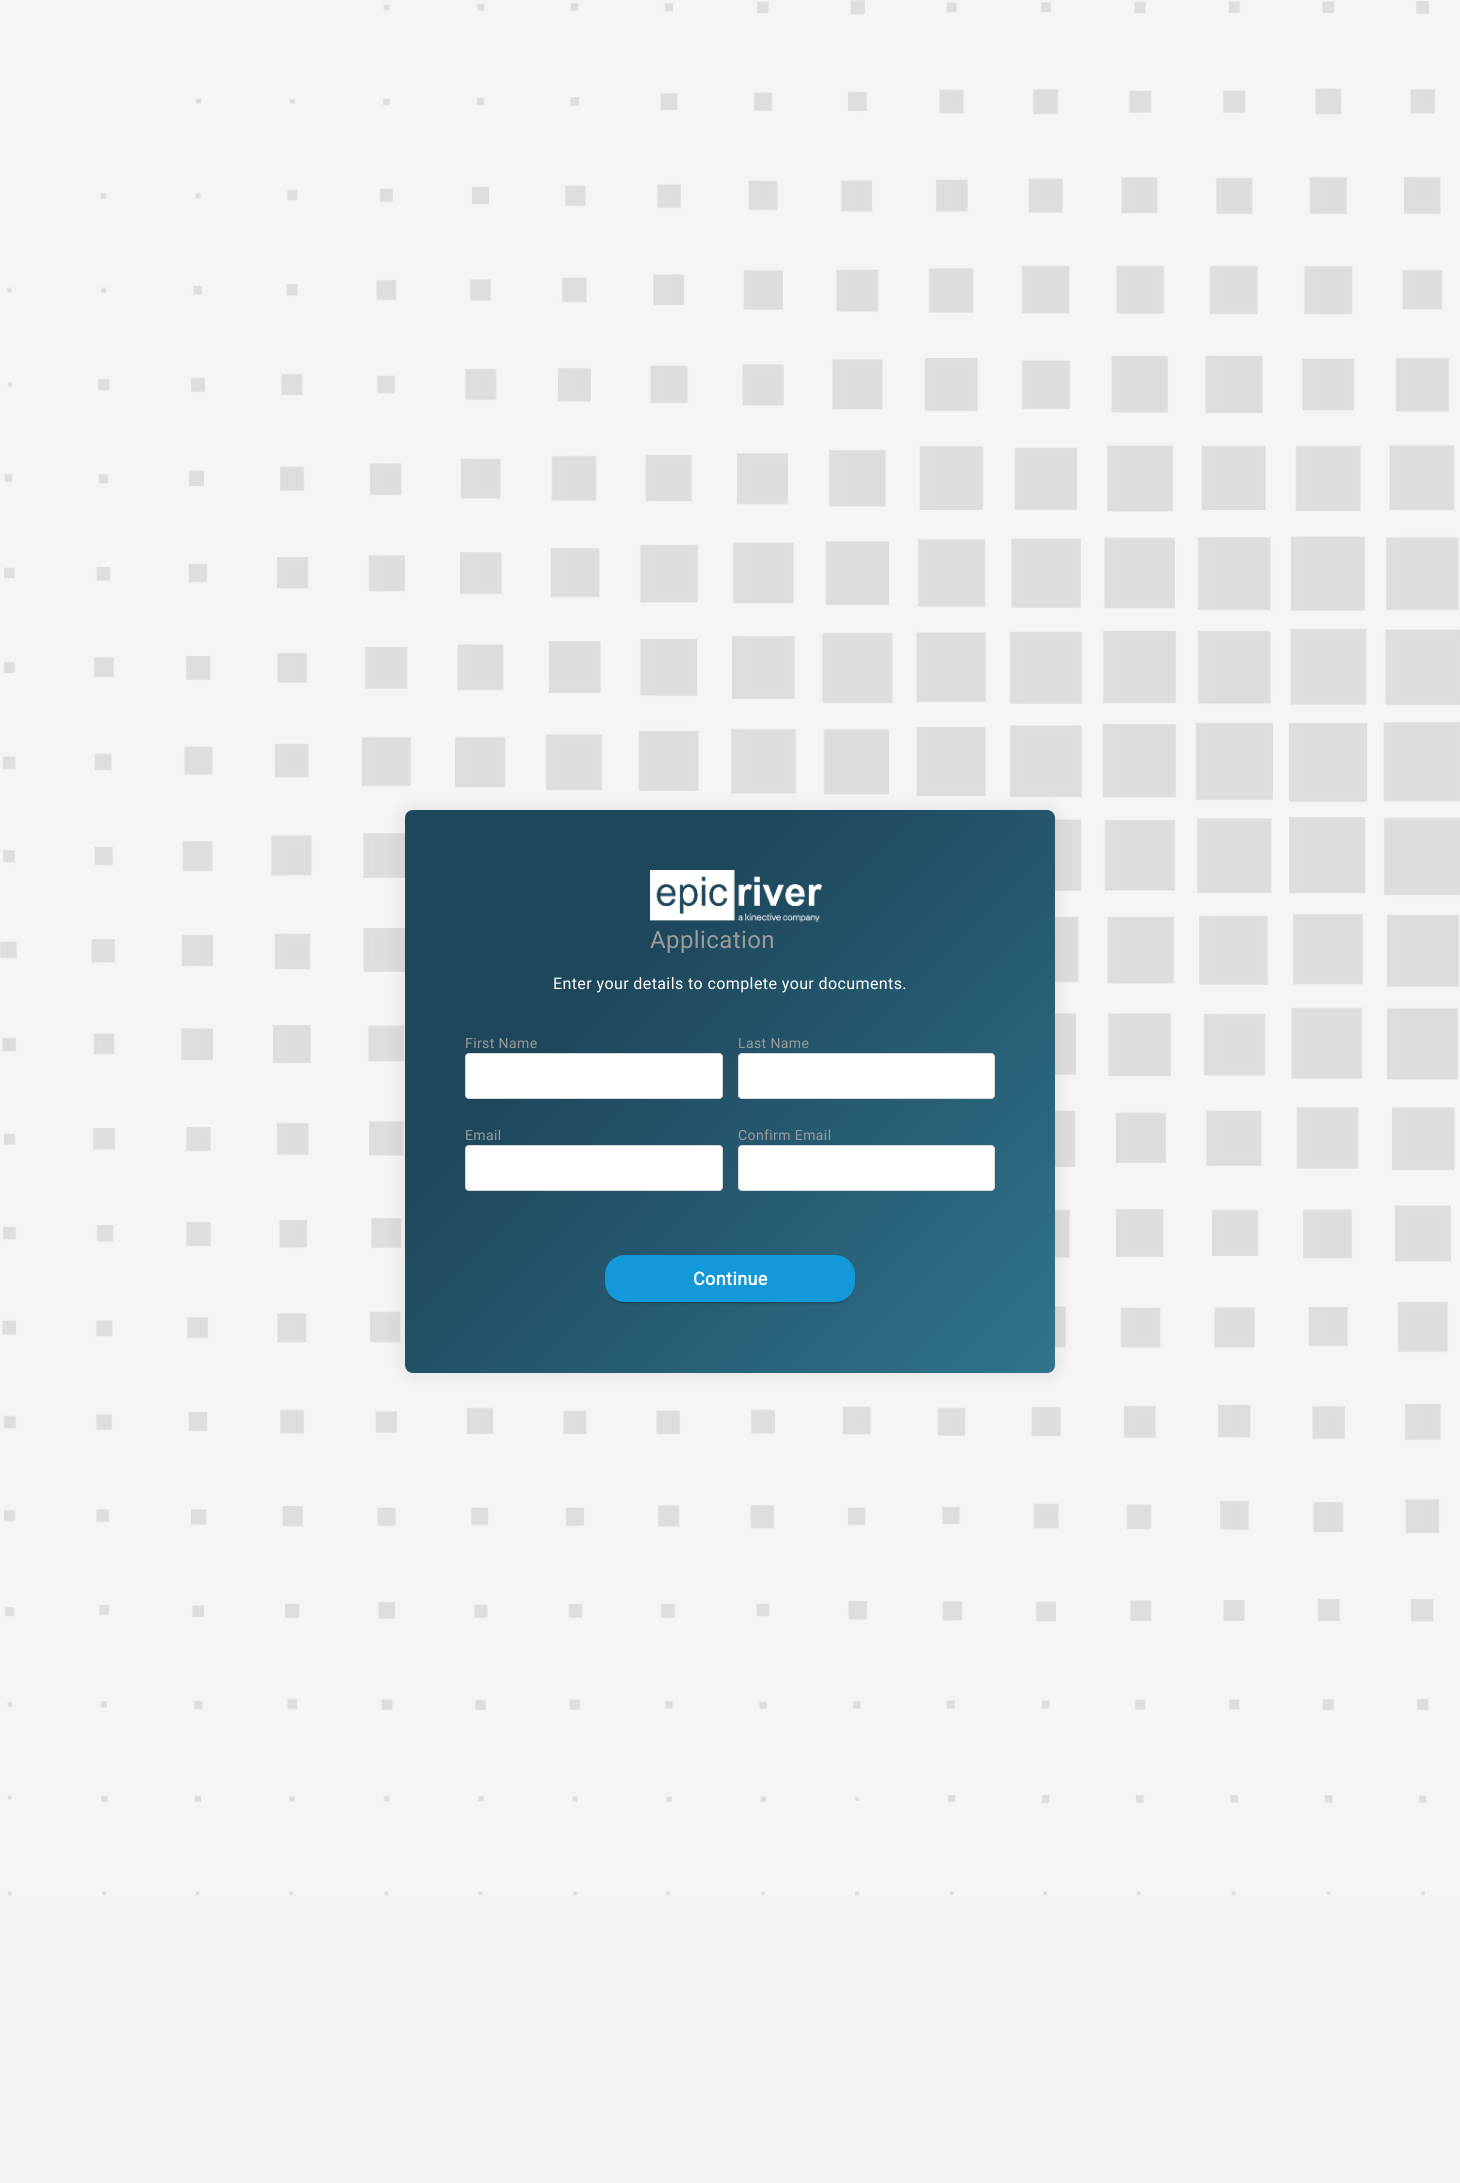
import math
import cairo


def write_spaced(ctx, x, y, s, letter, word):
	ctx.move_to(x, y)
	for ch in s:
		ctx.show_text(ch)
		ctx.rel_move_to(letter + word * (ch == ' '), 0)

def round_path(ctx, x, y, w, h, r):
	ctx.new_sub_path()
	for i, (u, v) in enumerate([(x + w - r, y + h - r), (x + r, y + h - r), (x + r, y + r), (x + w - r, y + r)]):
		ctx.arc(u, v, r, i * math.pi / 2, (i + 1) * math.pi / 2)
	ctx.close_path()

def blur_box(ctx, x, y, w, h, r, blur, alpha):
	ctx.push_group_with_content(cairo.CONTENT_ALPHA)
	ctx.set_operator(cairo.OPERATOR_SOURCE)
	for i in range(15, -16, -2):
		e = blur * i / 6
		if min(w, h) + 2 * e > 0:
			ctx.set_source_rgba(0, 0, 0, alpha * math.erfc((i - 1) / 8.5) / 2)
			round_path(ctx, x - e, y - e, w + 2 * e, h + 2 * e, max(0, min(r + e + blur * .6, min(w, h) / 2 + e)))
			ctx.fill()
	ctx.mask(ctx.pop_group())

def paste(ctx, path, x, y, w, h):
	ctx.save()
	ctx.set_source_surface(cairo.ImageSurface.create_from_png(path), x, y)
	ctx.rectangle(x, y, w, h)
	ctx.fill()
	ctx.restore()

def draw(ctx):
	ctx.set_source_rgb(0.949, 0.953, 0.953)
	ctx.paint()
	paste(ctx, 'media/1.png', 0, 0, 1460, 1896)
	ctx.set_source_rgb(0, 0, 0)
	blur_box(ctx, 404, 809, 650, 563, 8, 10, 0.05)
	blur_box(ctx, 406, 811, 650, 563, 8, 10, 0.05)
	gradient = cairo.LinearGradient(427, 788, 1033, 1395)
	gradient.add_color_stop_rgba(0, 0.118, 0.278, 0.357, 1)
	gradient.add_color_stop_rgba(0.31, 0.118, 0.278, 0.357, 1)
	gradient.add_color_stop_rgba(1, 0.188, 0.455, 0.557, 1)
	ctx.set_source(gradient)
	round_path(ctx, 405, 810, 650, 563, 8)
	ctx.fill()
	paste(ctx, 'media/2.png', 650, 870, 172, 52)
	ctx.select_font_face('Roboto')
	ctx.set_font_size(24)
	ctx.set_source_rgb(0.608, 0.608, 0.608)
	write_spaced(ctx, 650, 948, 'Application', 0.4, 0)
	ctx.set_font_size(16)
	ctx.set_source_rgb(1, 1, 1)
	write_spaced(ctx, 553, 989, 'Enter your details to complete your documents.', 0.4, 0)
	ctx.set_font_size(14)
	ctx.set_source_rgb(0.608, 0.608, 0.608)
	write_spaced(ctx, 465, 1048, 'First Name', 0.4, 0)
	ctx.set_source_rgb(1, 1, 1)
	round_path(ctx, 465.5, 1053.5, 257, 45, 3.5)
	ctx.fill_preserve()
	ctx.set_source_rgb(0.847, 0.847, 0.847)
	ctx.set_line_width(1)
	ctx.stroke()
	ctx.set_source_rgb(0.608, 0.608, 0.608)
	write_spaced(ctx, 738, 1048, 'Last Name', 0.4, 0)
	ctx.set_source_rgb(1, 1, 1)
	round_path(ctx, 738.5, 1053.5, 256, 45, 3.5)
	ctx.fill_preserve()
	ctx.set_source_rgb(0.847, 0.847, 0.847)
	ctx.stroke()
	ctx.set_source_rgb(0.608, 0.608, 0.608)
	write_spaced(ctx, 465, 1140, 'Email', 0.4, 0)
	ctx.set_source_rgb(1, 1, 1)
	round_path(ctx, 465.5, 1145.5, 257, 45, 3.5)
	ctx.fill_preserve()
	ctx.set_source_rgb(0.847, 0.847, 0.847)
	ctx.stroke()
	ctx.set_source_rgb(0.608, 0.608, 0.608)
	write_spaced(ctx, 738, 1140, 'Confirm Email', 0.4, 0)
	ctx.set_source_rgb(1, 1, 1)
	round_path(ctx, 738.5, 1145.5, 256, 45, 3.5)
	ctx.fill_preserve()
	ctx.set_source_rgb(0.847, 0.847, 0.847)
	ctx.stroke()
	ctx.set_source_rgb(0, 0, 0)
	blur_box(ctx, 605, 1257, 250, 47, 20, 1, 0.14)
	blur_box(ctx, 607, 1260, 246, 43, 18, 0.5, 0.1)
	ctx.set_source_rgb(0.075, 0.596, 0.851)
	round_path(ctx, 605, 1255, 250, 47, 20)
	ctx.fill()
	ctx.select_font_face('Roboto', cairo.FONT_SLANT_NORMAL, cairo.FONT_WEIGHT_BOLD)
	ctx.set_font_size(18)
	ctx.set_source_rgb(1, 1, 1)
	write_spaced(ctx, 693, 1285, 'Continue', 0.4, 0)


surface = cairo.ImageSurface(cairo.FORMAT_RGB24, 1460, 2183)
ctx = cairo.Context(surface)
options = cairo.FontOptions()
options.set_hint_metrics(cairo.HINT_METRICS_OFF)
options.set_hint_style(cairo.HINT_STYLE_NONE)
ctx.set_font_options(options)
ctx.set_miter_limit(4)
draw(ctx)
surface.write_to_png('image.png')
